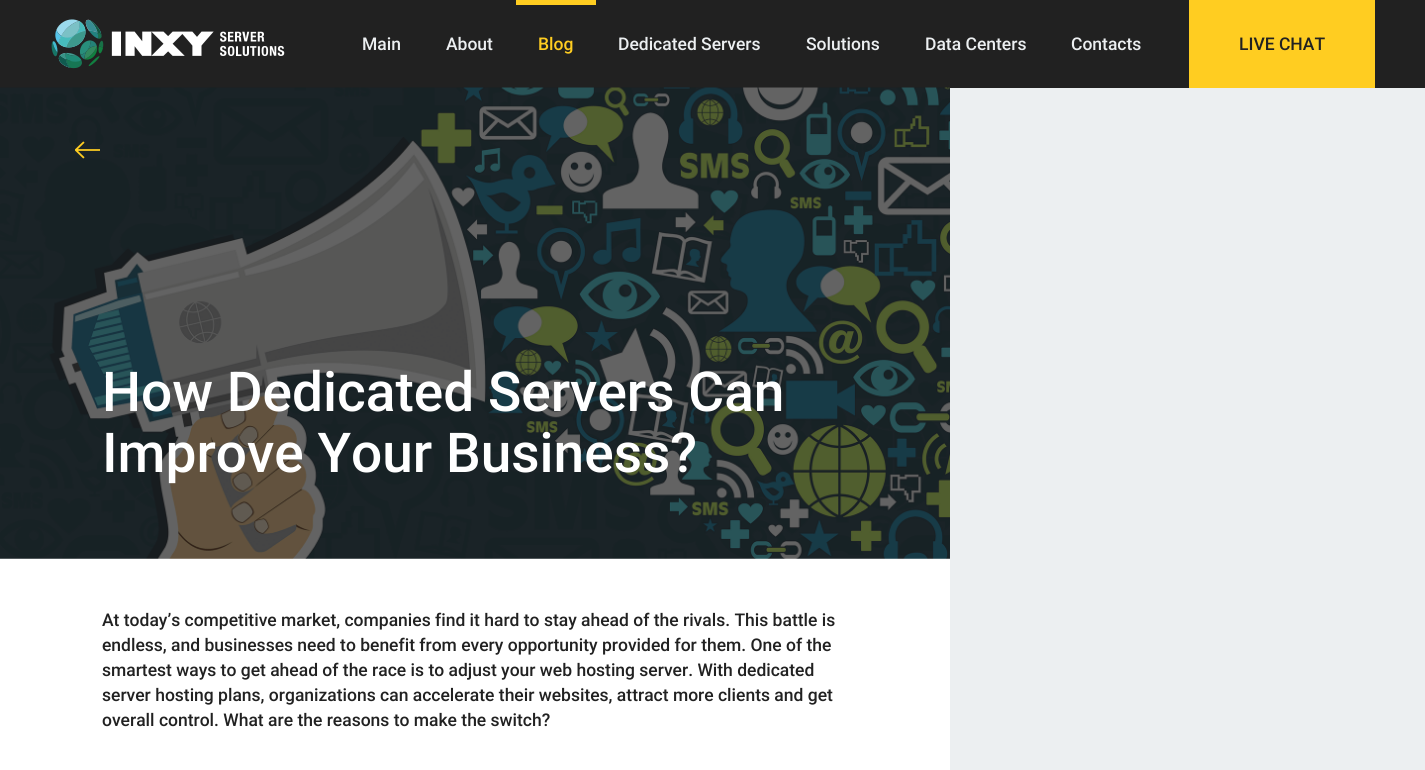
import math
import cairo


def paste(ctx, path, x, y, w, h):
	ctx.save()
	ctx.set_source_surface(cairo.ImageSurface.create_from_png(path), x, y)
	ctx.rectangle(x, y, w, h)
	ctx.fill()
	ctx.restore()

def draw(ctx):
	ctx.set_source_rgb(0.129, 0.129, 0.129)
	ctx.paint()
	paste(ctx, 'media/1.png', 51, 19, 234, 50)
	ctx.select_font_face('Roboto Medium')
	ctx.set_font_size(17.5)
	ctx.set_source_rgb(0.925, 0.937, 0.945)
	ctx.move_to(362, 50)
	ctx.show_text('Main')
	ctx.move_to(446, 50)
	ctx.show_text('About')
	ctx.set_source_rgb(1, 0.804, 0.129)
	ctx.rectangle(516, 0, 80, 5)
	ctx.fill()
	ctx.move_to(538, 50)
	ctx.show_text('Blog')
	ctx.set_source_rgb(0.925, 0.937, 0.945)
	for x, y, s in [
		(618, 50, 'Dedicated Servers'),
		(806, 50, 'Solutions'),
		(925, 50, 'Data Centers'),
		(1071, 50, 'Contacts'),
	]:
		ctx.move_to(x, y)
		ctx.show_text(s)
	ctx.set_source_rgb(1, 0.804, 0.129)
	ctx.rectangle(1189, 0, 186, 88)
	ctx.fill()
	ctx.set_source_rgb(0.129, 0.129, 0.129)
	ctx.move_to(1239, 50)
	ctx.show_text('LIVE CHAT')
	ctx.set_source_rgb(0.925, 0.937, 0.945)
	ctx.rectangle(950, 88, 475, 682)
	ctx.fill()
	ctx.set_source_rgb(1, 1, 1)
	ctx.rectangle(0, 558, 950, 212)
	ctx.fill()
	paste(ctx, 'media/2.png', 0, 87, 950, 472)
	paste(ctx, 'media/3.png', 75, 141, 25, 18)
	ctx.set_font_size(55)
	ctx.move_to(102, 411)
	ctx.show_text('How Dedicated Servers Can')
	ctx.move_to(102, 472)
	ctx.show_text('Improve Your Business?')
	ctx.set_font_size(17.5)
	ctx.set_source_rgb(0.129, 0.129, 0.129)
	for x, y, s in [
		(102, 626, 'At today’s competitive market, companies find it hard to stay ahead of the rivals. This battle is'),
		(102, 651, 'endless, and businesses need to benefit from every opportunity provided for them. One of the'),
		(102, 676, 'smartest ways to get ahead of the race is to adjust your web hosting server. With dedicated'),
		(102, 701, 'server hosting plans, organizations can accelerate their websites, attract more clients and get'),
		(102, 726, 'overall control. What are the reasons to make the switch?'),
	]:
		ctx.move_to(x, y)
		ctx.show_text(s)


surface = cairo.ImageSurface(cairo.FORMAT_RGB24, 1425, 770)
ctx = cairo.Context(surface)
options = cairo.FontOptions()
options.set_hint_metrics(cairo.HINT_METRICS_OFF)
options.set_hint_style(cairo.HINT_STYLE_NONE)
ctx.set_font_options(options)
ctx.set_miter_limit(4)
draw(ctx)
surface.write_to_png('image.png')
